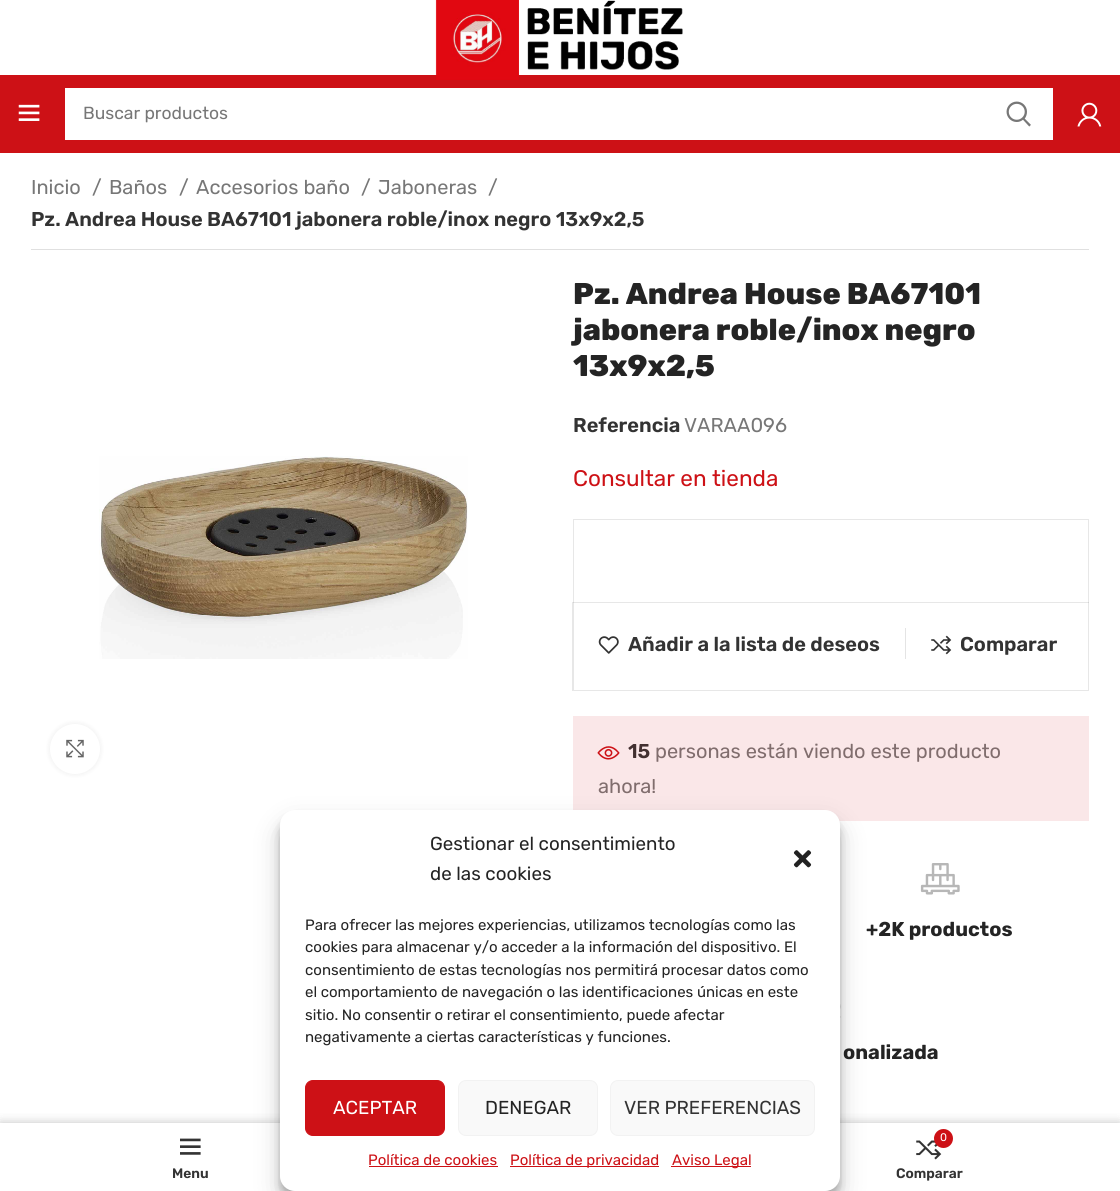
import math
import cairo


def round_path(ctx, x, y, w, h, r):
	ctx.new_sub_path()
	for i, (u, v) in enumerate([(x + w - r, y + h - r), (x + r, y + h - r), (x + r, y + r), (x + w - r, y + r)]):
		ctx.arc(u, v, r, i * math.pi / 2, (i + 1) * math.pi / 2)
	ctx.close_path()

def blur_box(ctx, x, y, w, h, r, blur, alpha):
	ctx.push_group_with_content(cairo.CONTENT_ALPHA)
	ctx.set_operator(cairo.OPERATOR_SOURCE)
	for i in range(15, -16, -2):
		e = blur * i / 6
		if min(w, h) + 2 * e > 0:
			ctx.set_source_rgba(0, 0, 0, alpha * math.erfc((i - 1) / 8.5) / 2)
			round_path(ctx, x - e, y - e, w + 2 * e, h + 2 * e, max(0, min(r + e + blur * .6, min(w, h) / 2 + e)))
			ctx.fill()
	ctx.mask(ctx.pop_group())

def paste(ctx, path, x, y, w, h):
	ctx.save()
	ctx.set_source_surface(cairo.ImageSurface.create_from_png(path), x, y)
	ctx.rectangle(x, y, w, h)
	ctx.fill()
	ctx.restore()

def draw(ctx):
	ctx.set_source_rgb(1, 1, 1)
	ctx.paint()
	ctx.set_source_rgb(0.98, 0.906, 0.91)
	ctx.rectangle(573, 716, 516, 105)
	ctx.fill()
	ctx.set_source_rgb(0.804, 0.067, 0.086)
	ctx.rectangle(0, 75, 1120, 78)
	ctx.fill()
	paste(ctx, 'media/1.png', 435, 0, 248, 80)
	paste(ctx, 'media/2.png', 18, 104, 22, 17)
	ctx.set_source_rgb(1, 1, 1)
	ctx.rectangle(65, 88, 988, 52)
	ctx.fill()
	ctx.select_font_face('Rubik')
	ctx.set_font_size(17.5)
	ctx.set_source_rgb(0.467, 0.467, 0.467)
	ctx.move_to(83, 119)
	ctx.show_text('Buscar productos')
	paste(ctx, 'media/3.png', 1006, 101, 25, 26)
	paste(ctx, 'media/4.png', 1077, 102, 25, 25)
	ctx.set_font_size(20)
	for x, y, s in [
		(31, 194, 'Inicio'),
		(92, 194, '/'),
		(109, 194, 'Baños'),
		(179, 194, '/'),
		(196, 194, 'Accesorios baño'),
		(361, 194, '/'),
		(378, 194, 'Jaboneras'),
		(488, 194, '/'),
	]:
		ctx.move_to(x, y)
		ctx.show_text(s)
	ctx.select_font_face('Rubik SemiBold')
	ctx.set_source_rgb(0.2, 0.2, 0.2)
	ctx.move_to(31, 226)
	ctx.show_text('Pz. Andrea House BA67101 jabonera roble/inox negro 13x9x2,5')
	ctx.set_source_rgb(0.878, 0.878, 0.878)
	ctx.rectangle(31, 249, 1058, 1)
	ctx.fill()
	paste(ctx, 'media/5.png', 99, 456, 369, 203)
	ctx.set_source_rgb(0, 0, 0)
	blur_box(ctx, 50, 724, 50, 50, 25, 3, 0.08)
	ctx.set_source_rgb(1, 1, 1)
	ctx.arc(75, 749, 25, 0, 2 * math.pi)
	ctx.fill()
	paste(ctx, 'media/6.png', 66, 739, 18, 19)
	ctx.select_font_face('Rubik ExtraBold')
	ctx.set_font_size(30)
	ctx.set_source_rgb(0.141, 0.141, 0.141)
	for x, y, s in [
		(573, 304, 'Pz. Andrea House BA67101'),
		(573, 340, 'jabonera roble/inox negro'),
		(573, 376, '13x9x2,5'),
	]:
		ctx.move_to(x, y)
		ctx.show_text(s)
	ctx.select_font_face('Rubik SemiBold')
	ctx.set_font_size(20)
	ctx.set_source_rgb(0.2, 0.2, 0.2)
	ctx.move_to(573, 432)
	ctx.show_text('Referencia')
	ctx.select_font_face('Rubik')
	ctx.set_source_rgb(0.467, 0.467, 0.467)
	ctx.move_to(684, 432)
	ctx.show_text('VARAA096')
	ctx.set_font_size(22.5)
	ctx.set_source_rgb(0.804, 0.067, 0.086)
	ctx.move_to(573, 486)
	ctx.show_text('Consultar en tienda')
	ctx.rectangle(573.5, 519.5, 515, 83)
	ctx.set_source_rgb(0.906, 0.906, 0.906)
	ctx.set_line_width(1)
	ctx.stroke()
	ctx.set_source_rgba(0.063, 0.063, 0.063, 0.1)
	ctx.new_path()
	ctx.move_to(1089, 602)
	ctx.line_to(1089, 691)
	ctx.line_to(1088, 690)
	ctx.line_to(1088, 602)
	ctx.close_path()
	ctx.fill()
	ctx.new_path()
	ctx.move_to(1089, 691)
	ctx.line_to(572, 691)
	ctx.line_to(574, 690)
	ctx.line_to(1088, 690)
	ctx.close_path()
	ctx.fill()
	ctx.new_path()
	ctx.move_to(572, 691)
	ctx.line_to(572, 602)
	ctx.line_to(574, 602)
	ctx.line_to(574, 690)
	ctx.close_path()
	ctx.fill()
	ctx.set_source_rgb(0.894, 0.894, 0.894)
	ctx.rectangle(905, 628, 1, 31)
	ctx.fill()
	paste(ctx, 'media/7.png', 598, 636, 21, 18)
	ctx.select_font_face('Rubik SemiBold')
	ctx.set_font_size(20)
	ctx.set_source_rgb(0.2, 0.2, 0.2)
	ctx.move_to(628, 651)
	ctx.show_text('Añadir a la lista de deseos')
	paste(ctx, 'media/8.png', 931, 635, 21, 20)
	ctx.move_to(960, 651)
	ctx.show_text('Comparar')
	paste(ctx, 'media/9.png', 597, 746, 23, 14)
	ctx.set_source_rgb(0.259, 0.188, 0.188)
	ctx.move_to(628, 758)
	ctx.show_text('15')
	ctx.select_font_face('Rubik')
	ctx.set_source_rgb(0.502, 0.427, 0.427)
	ctx.move_to(655, 758)
	ctx.show_text('personas están viendo este producto')
	ctx.move_to(598, 793)
	ctx.show_text('ahora!')
	paste(ctx, 'media/10.png', 920, 863, 40, 32)
	ctx.select_font_face('Rubik', cairo.FONT_SLANT_NORMAL, cairo.FONT_WEIGHT_BOLD)
	ctx.set_source_rgb(0.141, 0.141, 0.141)
	ctx.move_to(866, 936)
	ctx.show_text('+2K productos')
	paste(ctx, 'media/11.png', 840, 1004, 1, 14)
	ctx.move_to(843, 1059)
	ctx.show_text('onalizada')
	ctx.set_source_rgb(0, 0, 0)
	blur_box(ctx, 0, 1123, 1120, 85, 0, 5.5, 0.12)
	blur_box(ctx, 0, 1123, 1120, 68, 0, 5.5, 0.12)
	ctx.set_source_rgb(1, 1, 1)
	ctx.rectangle(0, 1123, 1120, 68)
	ctx.fill()
	ctx.set_source_rgb(0, 0, 0)
	blur_box(ctx, 280, 818, 560, 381, 15, 4, 0.23)
	blur_box(ctx, 280, 823, 560, 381, 15, 12.5, 0.19)
	ctx.set_source_rgb(1, 1, 1)
	round_path(ctx, 280, 810, 560, 381, 15)
	ctx.fill()
	ctx.select_font_face('Rubik')
	ctx.set_font_size(18.75)
	ctx.set_source_rgb(0.141, 0.141, 0.141)
	ctx.move_to(430, 850)
	ctx.show_text('Gestionar el consentimiento')
	ctx.move_to(430, 880)
	ctx.show_text('de las cookies')
	paste(ctx, 'media/12.png', 793, 850, 19, 18)
	ctx.set_font_size(15)
	for x, y, s in [
		(305, 930, 'Para ofrecer las mejores experiencias, utilizamos tecnologías como las'),
		(305, 952, 'cookies para almacenar y/o acceder a la información del dispositivo. El'),
		(305, 975, 'consentimiento de estas tecnologías nos permitirá procesar datos como'),
		(305, 997, 'el comportamiento de navegación o las identificaciones únicas en este'),
		(305, 1020, 'sitio. No consentir o retirar el consentimiento, puede afectar'),
		(305, 1042, 'negativamente a ciertas características y funciones.'),
	]:
		ctx.move_to(x, y)
		ctx.show_text(s)
	ctx.set_source_rgb(0.804, 0.067, 0.086)
	round_path(ctx, 305.5, 1080.5, 139, 55, 7.5)
	ctx.fill_preserve()
	ctx.stroke()
	ctx.set_font_size(18.75)
	ctx.set_source_rgb(1, 1, 1)
	ctx.move_to(333, 1114)
	ctx.show_text('ACEPTAR')
	ctx.set_source_rgb(0.976, 0.976, 0.976)
	round_path(ctx, 458.5, 1080.5, 139, 55, 7.5)
	ctx.fill_preserve()
	ctx.set_source_rgb(0.949, 0.949, 0.949)
	ctx.stroke()
	ctx.set_source_rgb(0.141, 0.141, 0.141)
	ctx.move_to(485, 1114)
	ctx.show_text('DENEGAR')
	ctx.set_source_rgb(0.976, 0.976, 0.976)
	round_path(ctx, 610.5, 1080.5, 204, 55, 7.5)
	ctx.fill_preserve()
	ctx.set_source_rgb(0.949, 0.949, 0.949)
	ctx.stroke()
	ctx.set_source_rgb(0.2, 0.2, 0.2)
	ctx.move_to(624, 1114)
	ctx.show_text('VER PREFERENCIAS')
	ctx.set_font_size(15)
	ctx.set_source_rgb(0.804, 0.067, 0.086)
	ctx.move_to(368, 1165)
	ctx.show_text('Política de cookies')
	ctx.rectangle(369, 1166, 129, 1)
	ctx.fill()
	ctx.rectangle(510, 1166, 149, 1)
	ctx.fill()
	ctx.move_to(510, 1165)
	ctx.show_text('Política de privacidad')
	ctx.rectangle(671, 1166, 80, 1)
	ctx.fill()
	ctx.move_to(672, 1165)
	ctx.show_text('Aviso Legal')
	paste(ctx, 'media/13.png', 180, 1138, 21, 17)
	ctx.select_font_face('Rubik SemiBold')
	ctx.set_font_size(13.75)
	ctx.set_source_rgb(0.2, 0.2, 0.2)
	ctx.move_to(172, 1178)
	ctx.show_text('Menu')
	paste(ctx, 'media/14.png', 916, 1137, 26, 23)
	ctx.set_source_rgb(0.804, 0.067, 0.086)
	ctx.arc(943.5, 1138.5, 9.5, 0, 2 * math.pi)
	ctx.fill()
	ctx.select_font_face('Rubik')
	ctx.set_font_size(11)
	ctx.set_source_rgb(1, 1, 1)
	ctx.move_to(940, 1141)
	ctx.show_text('0')
	ctx.select_font_face('Rubik SemiBold')
	ctx.set_font_size(13.75)
	ctx.set_source_rgb(0.2, 0.2, 0.2)
	ctx.move_to(896, 1178)
	ctx.show_text('Comparar')


surface = cairo.ImageSurface(cairo.FORMAT_RGB24, 1120, 1191)
ctx = cairo.Context(surface)
options = cairo.FontOptions()
options.set_hint_metrics(cairo.HINT_METRICS_OFF)
options.set_hint_style(cairo.HINT_STYLE_NONE)
ctx.set_font_options(options)
ctx.set_miter_limit(4)
draw(ctx)
surface.write_to_png('image.png')
